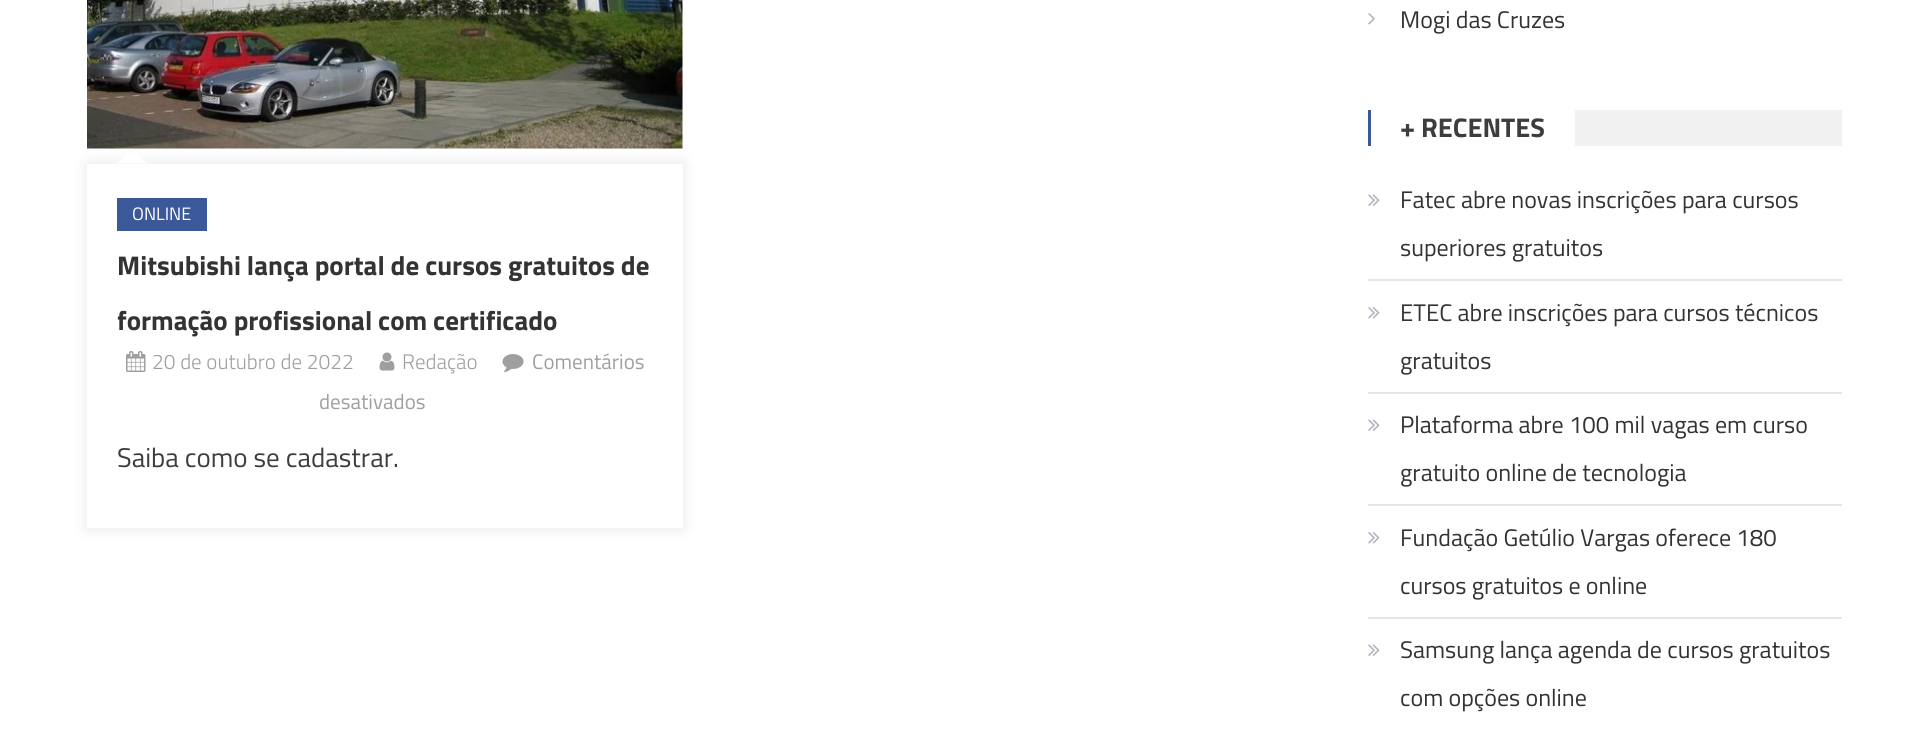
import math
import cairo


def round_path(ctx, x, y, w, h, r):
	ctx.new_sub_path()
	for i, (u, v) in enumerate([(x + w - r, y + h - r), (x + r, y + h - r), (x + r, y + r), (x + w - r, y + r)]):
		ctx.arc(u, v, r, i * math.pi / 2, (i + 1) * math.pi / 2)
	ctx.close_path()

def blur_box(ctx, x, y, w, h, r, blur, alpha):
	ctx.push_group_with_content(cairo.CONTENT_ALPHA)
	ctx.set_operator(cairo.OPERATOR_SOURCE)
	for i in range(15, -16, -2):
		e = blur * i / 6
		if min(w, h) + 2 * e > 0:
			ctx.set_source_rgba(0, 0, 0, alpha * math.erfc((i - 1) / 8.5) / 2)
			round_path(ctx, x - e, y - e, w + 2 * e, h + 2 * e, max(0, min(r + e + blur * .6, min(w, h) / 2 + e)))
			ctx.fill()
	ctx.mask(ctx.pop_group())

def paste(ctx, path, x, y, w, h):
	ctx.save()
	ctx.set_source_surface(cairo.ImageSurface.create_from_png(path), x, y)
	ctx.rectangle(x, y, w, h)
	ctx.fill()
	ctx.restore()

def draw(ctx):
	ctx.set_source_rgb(1, 1, 1)
	ctx.paint()
	paste(ctx, 'media/1.png', 87, 0, 596, 149)
	ctx.save()
	ctx.set_fill_rule(cairo.FILL_RULE_EVEN_ODD)
	ctx.new_path()
	ctx.move_to(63, 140)
	ctx.line_to(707, 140)
	ctx.line_to(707, 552)
	ctx.line_to(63, 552)
	ctx.close_path()
	ctx.move_to(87, 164)
	ctx.line_to(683, 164)
	ctx.line_to(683, 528)
	ctx.line_to(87, 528)
	ctx.close_path()
	ctx.clip()
	ctx.set_source_rgb(0, 0, 0)
	blur_box(ctx, 87, 164, 596, 364, 0, 7.5, 0.1)
	ctx.restore()
	ctx.set_source_rgb(1, 1, 1)
	ctx.new_path()
	ctx.move_to(147, 163.5)
	ctx.line_to(117, 163.5)
	ctx.line_to(132, 148.5)
	ctx.close_path()
	ctx.fill()
	ctx.set_source_rgb(0.231, 0.349, 0.596)
	ctx.rectangle(117, 198, 90, 33)
	ctx.fill()
	ctx.select_font_face('Titillium Web')
	ctx.set_font_size(18)
	ctx.set_source_rgb(1, 1, 1)
	ctx.move_to(132, 220)
	ctx.show_text('ONLINE')
	ctx.select_font_face('Titillium Web', cairo.FONT_SLANT_NORMAL, cairo.FONT_WEIGHT_BOLD)
	ctx.set_font_size(27)
	ctx.set_source_rgb(0.2, 0.2, 0.2)
	ctx.move_to(117, 275)
	ctx.show_text('Mitsubishi lança portal de cursos gratuitos de')
	ctx.move_to(117, 330)
	ctx.show_text('formação profissional com certificado')
	paste(ctx, 'media/2.png', 126, 351, 20, 21)
	ctx.select_font_face('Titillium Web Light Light')
	ctx.set_font_size(21)
	ctx.set_source_rgb(0.624, 0.624, 0.624)
	ctx.move_to(152, 369)
	ctx.show_text('20 de outubro de 2022')
	paste(ctx, 'media/3.png', 379, 352, 16, 19)
	ctx.move_to(402, 369)
	ctx.show_text('Redação')
	paste(ctx, 'media/4.png', 502, 354, 22, 18)
	ctx.select_font_face('Titillium Web')
	ctx.move_to(532, 369)
	ctx.show_text('Comentários')
	ctx.move_to(319, 409)
	ctx.show_text('desativados')
	ctx.set_font_size(27)
	ctx.set_source_rgb(0.239, 0.239, 0.239)
	ctx.move_to(117, 467)
	ctx.show_text('Saiba como se cadastrar.')
	paste(ctx, 'media/5.png', 1368, 13, 7, 12)
	ctx.set_font_size(24)
	ctx.set_source_rgb(0.2, 0.2, 0.2)
	ctx.move_to(1400, 28)
	ctx.show_text('Mogi das Cruzes')
	ctx.set_source_rgb(0.945, 0.945, 0.945)
	ctx.rectangle(1575, 110, 267, 36)
	ctx.fill()
	ctx.set_source_rgb(0.231, 0.349, 0.596)
	ctx.rectangle(1368, 110, 3, 36)
	ctx.fill()
	ctx.select_font_face('Titillium Web', cairo.FONT_SLANT_NORMAL, cairo.FONT_WEIGHT_BOLD)
	ctx.set_font_size(27)
	ctx.set_source_rgb(0.239, 0.239, 0.239)
	ctx.move_to(1400, 137)
	ctx.show_text('+ RECENTES')
	ctx.set_source_rgb(0.902, 0.902, 0.902)
	ctx.rectangle(1368, 279, 474, 2)
	ctx.fill()
	paste(ctx, 'media/6.png', 1368, 194, 12, 12)
	ctx.select_font_face('Titillium Web')
	ctx.set_font_size(24)
	ctx.set_source_rgb(0.2, 0.2, 0.2)
	ctx.move_to(1400, 208)
	ctx.show_text('Fatec abre novas inscrições para cursos')
	ctx.move_to(1400, 256)
	ctx.show_text('superiores gratuitos')
	ctx.set_source_rgb(0.902, 0.902, 0.902)
	ctx.rectangle(1368, 392, 474, 2)
	ctx.fill()
	paste(ctx, 'media/7.png', 1368, 307, 12, 12)
	ctx.set_source_rgb(0.2, 0.2, 0.2)
	ctx.move_to(1400, 321)
	ctx.show_text('ETEC abre inscrições para cursos técnicos')
	ctx.move_to(1400, 369)
	ctx.show_text('gratuitos')
	ctx.set_source_rgb(0.902, 0.902, 0.902)
	ctx.rectangle(1368, 504, 474, 2)
	ctx.fill()
	paste(ctx, 'media/6.png', 1368, 419, 12, 12)
	ctx.set_source_rgb(0.2, 0.2, 0.2)
	ctx.move_to(1400, 433)
	ctx.show_text('Plataforma abre 100 mil vagas em curso')
	ctx.move_to(1400, 481)
	ctx.show_text('gratuito online de tecnologia')
	ctx.set_source_rgb(0.902, 0.902, 0.902)
	ctx.rectangle(1368, 617, 474, 2)
	ctx.fill()
	paste(ctx, 'media/7.png', 1368, 532, 12, 12)
	ctx.set_source_rgb(0.2, 0.2, 0.2)
	ctx.move_to(1400, 546)
	ctx.show_text('Fundação Getúlio Vargas oferece 180')
	ctx.move_to(1400, 594)
	ctx.show_text('cursos gratuitos e online')
	paste(ctx, 'media/6.png', 1368, 644, 12, 12)
	ctx.move_to(1400, 658)
	ctx.show_text('Samsung lança agenda de cursos gratuitos')
	ctx.move_to(1400, 706)
	ctx.show_text('com opções online')


surface = cairo.ImageSurface(cairo.FORMAT_RGB24, 1927, 743)
ctx = cairo.Context(surface)
options = cairo.FontOptions()
options.set_hint_metrics(cairo.HINT_METRICS_OFF)
options.set_hint_style(cairo.HINT_STYLE_NONE)
ctx.set_font_options(options)
ctx.set_miter_limit(4)
draw(ctx)
surface.write_to_png('image.png')
